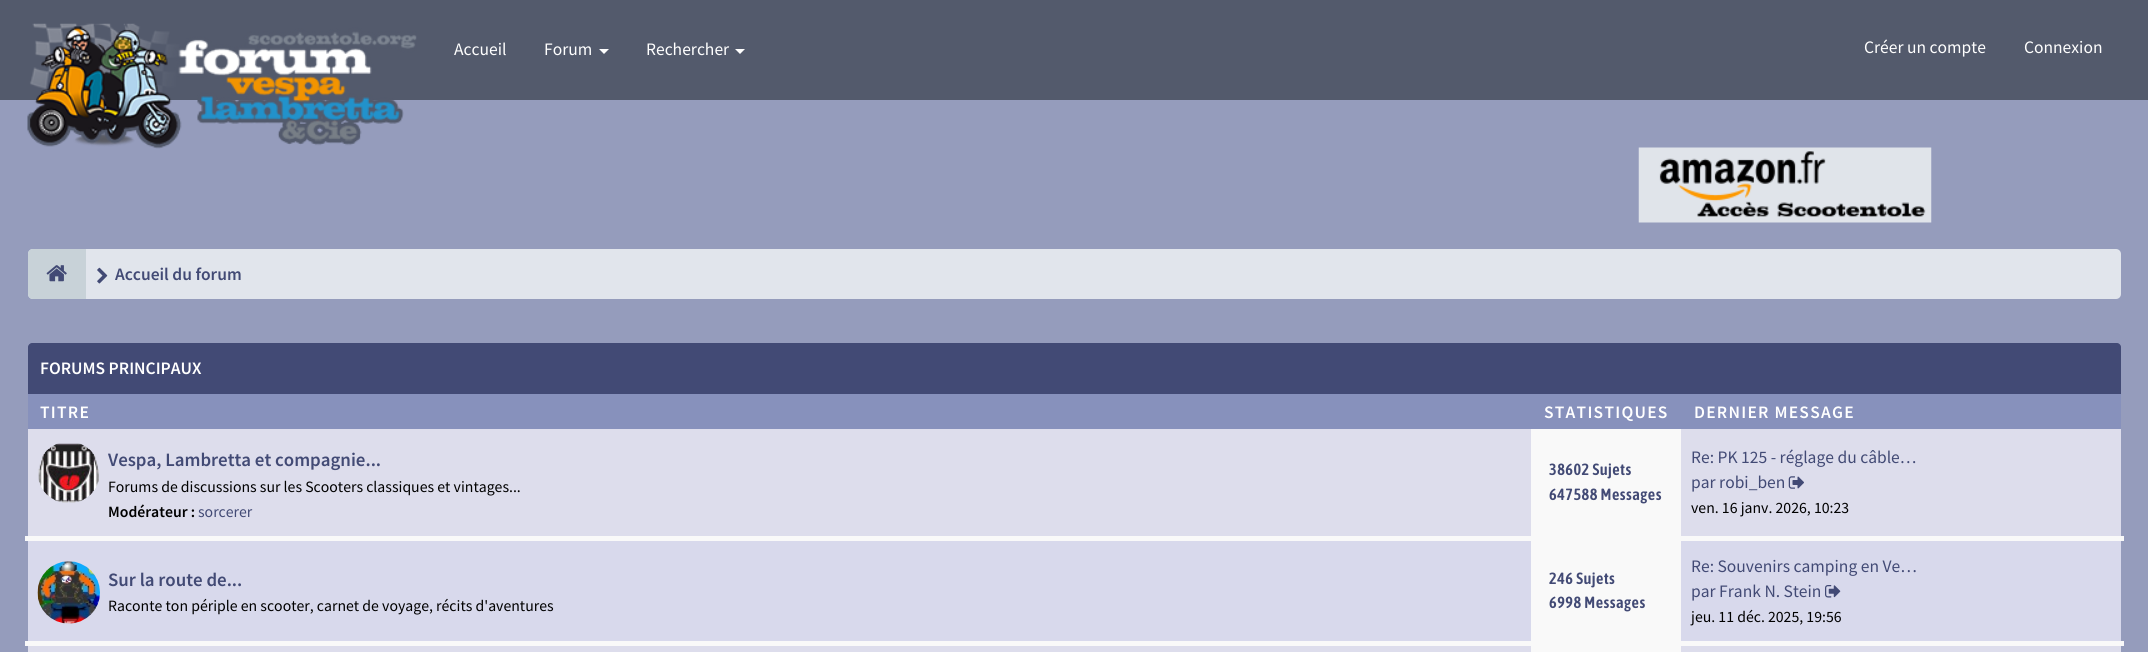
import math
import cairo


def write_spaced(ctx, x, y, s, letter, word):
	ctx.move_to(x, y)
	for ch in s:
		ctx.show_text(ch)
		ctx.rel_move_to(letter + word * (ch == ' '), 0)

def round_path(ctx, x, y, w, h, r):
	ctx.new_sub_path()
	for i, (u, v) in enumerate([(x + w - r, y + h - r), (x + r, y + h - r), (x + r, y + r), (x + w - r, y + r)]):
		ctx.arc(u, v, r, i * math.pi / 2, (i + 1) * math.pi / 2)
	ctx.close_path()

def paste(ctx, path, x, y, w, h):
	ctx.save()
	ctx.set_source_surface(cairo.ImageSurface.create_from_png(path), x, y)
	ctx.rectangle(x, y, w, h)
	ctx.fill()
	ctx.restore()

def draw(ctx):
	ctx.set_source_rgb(0.584, 0.612, 0.737)
	ctx.paint()
	ctx.set_source_rgb(0.325, 0.353, 0.424)
	ctx.rectangle(0, 0, 2148, 100)
	ctx.fill()
	paste(ctx, 'media/1.png', 27, 23, 390, 126)
	ctx.select_font_face('Source Sans Pro')
	ctx.set_font_size(17.5)
	ctx.set_source_rgb(1, 1, 1)
	ctx.move_to(454, 55)
	ctx.show_text('Accueil')
	ctx.move_to(544, 55)
	ctx.show_text('Forum')
	ctx.new_path()
	ctx.move_to(599, 49)
	ctx.line_to(609, 49)
	ctx.line_to(604, 54)
	ctx.close_path()
	ctx.fill()
	ctx.move_to(646, 55)
	ctx.show_text('Rechercher')
	ctx.new_path()
	ctx.move_to(735, 49)
	ctx.line_to(745, 49)
	ctx.line_to(740, 54)
	ctx.close_path()
	ctx.fill()
	ctx.move_to(1864, 53)
	ctx.show_text('Créer un compte')
	ctx.move_to(2024, 53)
	ctx.show_text('Connexion')
	paste(ctx, 'media/2.png', 1638, 147, 294, 76)
	ctx.set_source_rgb(0.882, 0.898, 0.922)
	round_path(ctx, 28, 249, 2093, 50, 5)
	ctx.fill()
	ctx.set_source_rgb(0.784, 0.824, 0.847)
	ctx.new_path()
	ctx.move_to(33, 249)
	ctx.line_to(86, 249)
	ctx.line_to(86, 299)
	ctx.line_to(33, 299)
	ctx.curve_to(30, 299, 28, 297, 28, 294)
	ctx.line_to(28, 254)
	ctx.curve_to(28, 251, 30, 249, 33, 249)
	ctx.close_path()
	ctx.fill()
	paste(ctx, 'media/3.png', 46, 265, 21, 17)
	paste(ctx, 'media/4.png', 97, 267, 11, 17)
	ctx.select_font_face('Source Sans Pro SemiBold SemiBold')
	ctx.set_source_rgb(0.259, 0.29, 0.459)
	ctx.move_to(115, 280)
	ctx.show_text('Accueil du forum')
	ctx.new_path()
	ctx.move_to(32, 343)
	ctx.line_to(2117, 343)
	ctx.curve_to(2119, 343, 2121, 345, 2121, 347)
	ctx.line_to(2121, 394)
	ctx.line_to(28, 394)
	ctx.line_to(28, 347)
	ctx.curve_to(28, 345, 30, 343, 32, 343)
	ctx.close_path()
	ctx.fill()
	ctx.set_source_rgb(1, 1, 1)
	ctx.move_to(40, 374)
	ctx.show_text('FORUMS PRINCIPAUX')
	ctx.set_source_rgb(0.529, 0.569, 0.737)
	ctx.rectangle(28, 394, 2093, 35)
	ctx.fill()
	ctx.set_source_rgb(1, 1, 1)
	for x, y, s in [
		(40, 418, 'TITRE'),
		(1544, 418, 'STATISTIQUES'),
		(1694, 418, 'DERNIER MESSAGE'),
	]:
		write_spaced(ctx, x, y, s, 1.25, 0)
	ctx.set_source_rgb(0.976, 0.976, 0.976)
	ctx.rectangle(1531, 429, 150, 107)
	ctx.fill()
	ctx.set_source_rgb(0.867, 0.867, 0.922)
	ctx.rectangle(28, 429, 1503, 107)
	ctx.fill()
	paste(ctx, 'media/5.png', 38, 443, 61, 60)
	ctx.set_font_size(18.9)
	ctx.set_source_rgb(0.259, 0.29, 0.459)
	ctx.move_to(108, 466)
	ctx.show_text('Vespa, Lambretta et compagnie...')
	ctx.select_font_face('Source Sans Pro')
	ctx.set_font_size(15.75)
	ctx.set_source_rgb(0, 0, 0)
	ctx.move_to(108, 492)
	ctx.show_text('Forums de discussions sur les Scooters classiques et vintages...')
	ctx.select_font_face('Source Sans Pro SemiBold SemiBold')
	ctx.move_to(108, 517)
	ctx.show_text('Modérateur :')
	ctx.select_font_face('Source Sans Pro')
	ctx.set_source_rgb(0.259, 0.29, 0.459)
	ctx.move_to(198, 517)
	ctx.show_text('sorcerer')
	ctx.select_font_face('Asap Condensed SemiBold')
	ctx.set_font_size(16.25)
	write_spaced(ctx, 1549, 475, '38602 Sujets', 0.5, 0)
	write_spaced(ctx, 1549, 500, '647588 Messages', 0.5, 0)
	ctx.set_source_rgb(0.867, 0.867, 0.922)
	ctx.rectangle(1681, 429, 440, 107)
	ctx.fill()
	ctx.select_font_face('Source Sans Pro')
	ctx.set_font_size(17.5)
	ctx.set_source_rgb(0.259, 0.29, 0.459)
	ctx.move_to(1691, 463)
	ctx.show_text('Re: PK 125 - réglage du câble…')
	ctx.move_to(1691, 488)
	ctx.show_text('par robi_ben')
	paste(ctx, 'media/6.png', 1788, 476, 16, 13)
	ctx.set_font_size(15.75)
	ctx.set_source_rgb(0, 0, 0)
	ctx.move_to(1691, 513)
	ctx.show_text('ven. 16 janv. 2026, 10:23')
	ctx.set_source_rgb(0.847, 0.851, 0.922)
	ctx.rectangle(28, 541, 1503, 100)
	ctx.fill()
	paste(ctx, 'media/7.png', 37, 561, 63, 63)
	ctx.select_font_face('Source Sans Pro SemiBold SemiBold')
	ctx.set_font_size(18.9)
	ctx.set_source_rgb(0.259, 0.29, 0.459)
	ctx.move_to(108, 586)
	ctx.show_text('Sur la route de...')
	ctx.select_font_face('Source Sans Pro')
	ctx.set_font_size(15.75)
	ctx.set_source_rgb(0, 0, 0)
	ctx.move_to(108, 611)
	ctx.show_text('Raconte ton périple en scooter, carnet de voyage, récits d\'aventures')
	ctx.set_source_rgb(0.976, 0.976, 0.976)
	ctx.rectangle(1531, 541, 150, 100)
	ctx.fill()
	ctx.select_font_face('Asap Condensed SemiBold')
	ctx.set_font_size(16.25)
	ctx.set_source_rgb(0.259, 0.29, 0.459)
	write_spaced(ctx, 1549, 584, '246 Sujets', 0.5, 0)
	write_spaced(ctx, 1549, 608, '6998 Messages', 0.5, 0)
	ctx.set_source_rgb(0.847, 0.851, 0.922)
	ctx.rectangle(1681, 541, 440, 100)
	ctx.fill()
	ctx.set_source_rgb(0.976, 0.976, 0.976)
	ctx.rectangle(25, 536, 2099, 5)
	ctx.fill()
	ctx.select_font_face('Source Sans Pro')
	ctx.set_font_size(17.5)
	ctx.set_source_rgb(0.259, 0.29, 0.459)
	ctx.move_to(1691, 572)
	ctx.show_text('Re: Souvenirs camping en Ve…')
	ctx.move_to(1691, 597)
	ctx.show_text('par Frank N. Stein')
	paste(ctx, 'media/8.png', 1825, 585, 16, 13)
	ctx.set_font_size(15.75)
	ctx.set_source_rgb(0, 0, 0)
	ctx.move_to(1691, 622)
	ctx.show_text('jeu. 11 déc. 2025, 19:56')
	ctx.set_source_rgb(0.976, 0.976, 0.976)
	ctx.rectangle(1531, 646, 150, 6)
	ctx.fill()
	ctx.set_source_rgb(0.867, 0.867, 0.922)
	ctx.rectangle(1681, 646, 440, 6)
	ctx.fill()
	ctx.set_source_rgb(0.976, 0.976, 0.976)
	ctx.rectangle(25, 641, 2099, 5)
	ctx.fill()
	ctx.set_source_rgb(0.867, 0.867, 0.922)
	ctx.rectangle(28, 646, 1503, 6)
	ctx.fill()


surface = cairo.ImageSurface(cairo.FORMAT_RGB24, 2148, 652)
ctx = cairo.Context(surface)
options = cairo.FontOptions()
options.set_hint_metrics(cairo.HINT_METRICS_OFF)
options.set_hint_style(cairo.HINT_STYLE_NONE)
ctx.set_font_options(options)
ctx.set_miter_limit(4)
draw(ctx)
surface.write_to_png('image.png')
